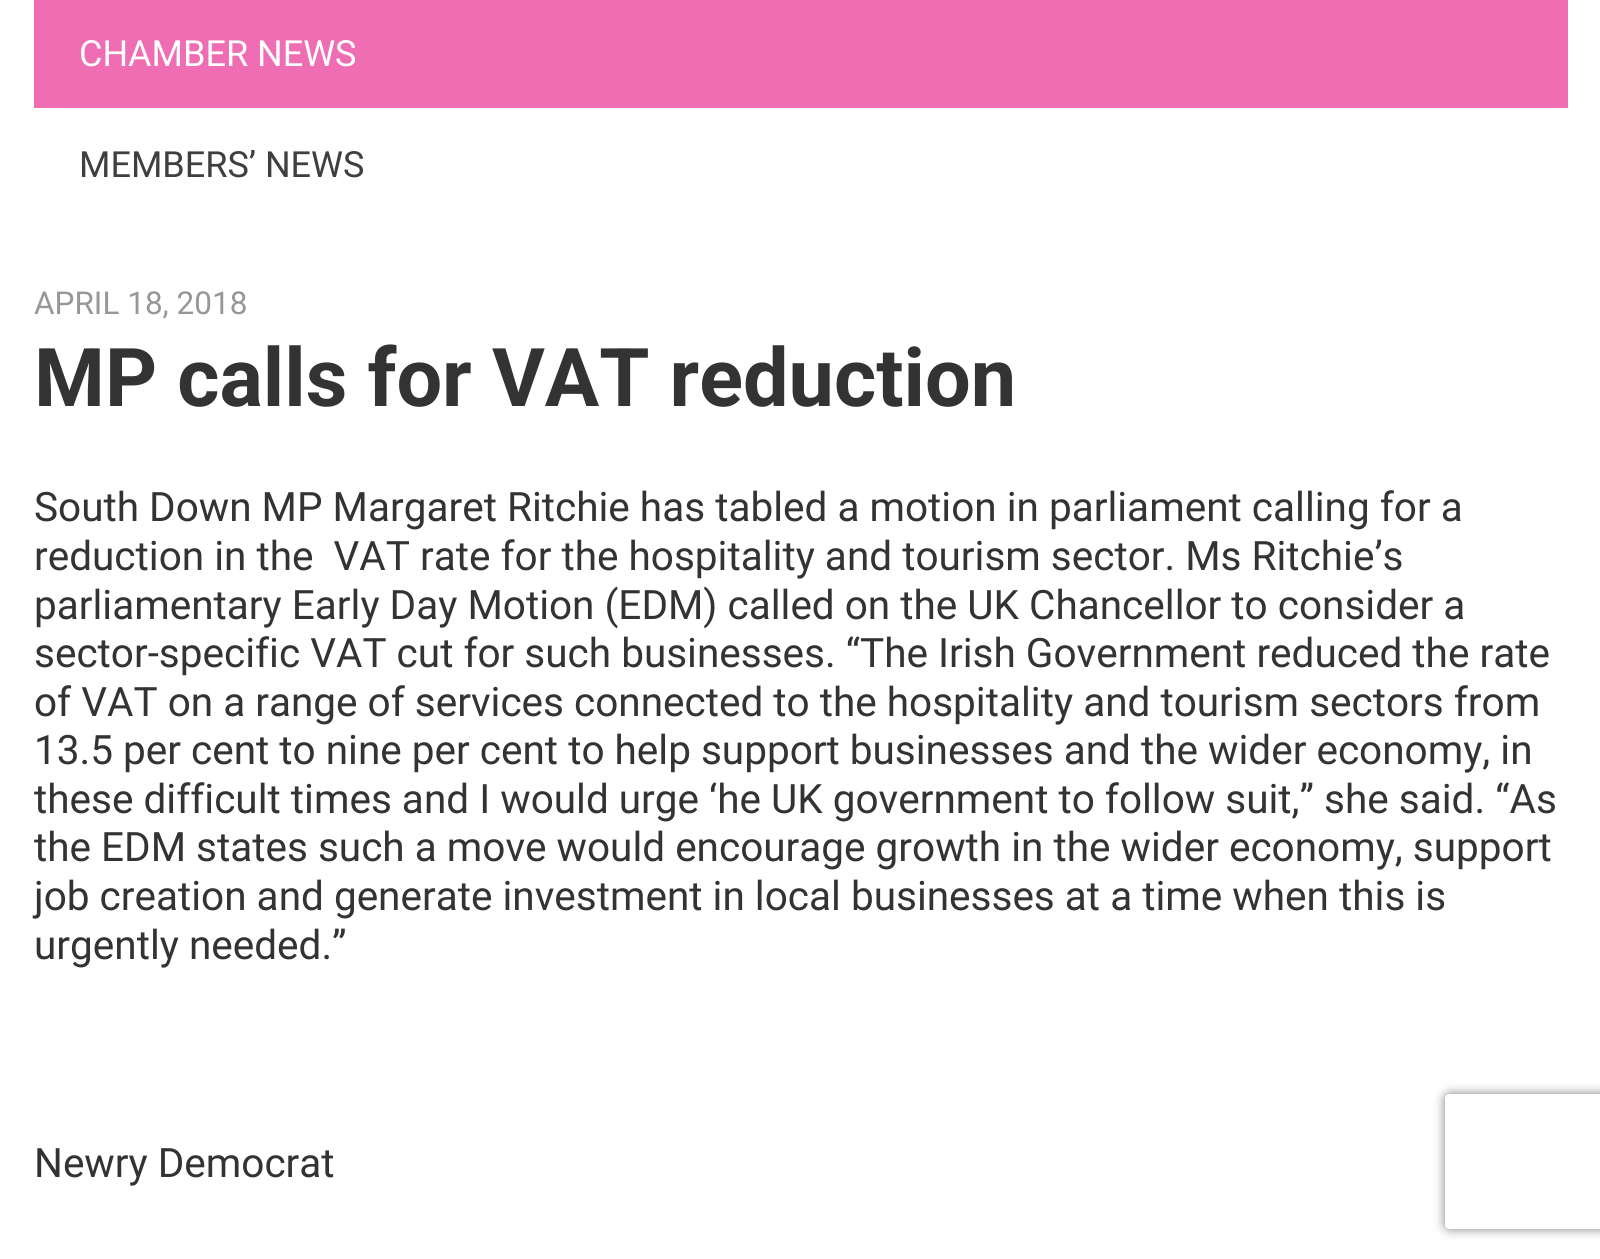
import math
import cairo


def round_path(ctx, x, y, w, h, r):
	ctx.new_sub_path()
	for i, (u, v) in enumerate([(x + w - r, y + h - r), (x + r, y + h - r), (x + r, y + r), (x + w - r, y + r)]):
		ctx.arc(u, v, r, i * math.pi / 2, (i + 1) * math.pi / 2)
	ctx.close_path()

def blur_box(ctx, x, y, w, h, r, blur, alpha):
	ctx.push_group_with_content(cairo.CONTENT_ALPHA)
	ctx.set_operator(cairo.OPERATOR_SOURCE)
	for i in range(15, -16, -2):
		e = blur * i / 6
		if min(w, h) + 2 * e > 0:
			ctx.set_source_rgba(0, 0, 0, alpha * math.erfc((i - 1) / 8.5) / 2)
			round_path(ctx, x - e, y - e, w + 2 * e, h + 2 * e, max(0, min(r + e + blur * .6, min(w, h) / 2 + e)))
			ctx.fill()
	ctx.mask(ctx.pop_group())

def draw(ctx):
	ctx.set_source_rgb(1, 1, 1)
	ctx.paint()
	ctx.set_source_rgb(0.937, 0.427, 0.702)
	ctx.rectangle(34, 0, 1534, 108)
	ctx.fill()
	ctx.select_font_face('Roboto')
	ctx.set_font_size(36)
	ctx.set_source_rgb(1, 1, 1)
	ctx.move_to(79, 66)
	ctx.show_text('CHAMBER NEWS')
	ctx.set_source_rgb(0.247, 0.247, 0.247)
	ctx.move_to(79, 177)
	ctx.show_text('MEMBERS’ NEWS')
	ctx.set_font_size(31.5)
	ctx.set_source_rgb(0.592, 0.592, 0.592)
	ctx.move_to(34, 314)
	ctx.show_text('APRIL 18, 2018')
	ctx.select_font_face('Roboto', cairo.FONT_SLANT_NORMAL, cairo.FONT_WEIGHT_BOLD)
	ctx.set_font_size(81)
	ctx.set_source_rgb(0.2, 0.2, 0.2)
	ctx.move_to(34, 406)
	ctx.show_text('MP calls for VAT reduction')
	ctx.select_font_face('Roboto')
	ctx.set_font_size(40.5)
	for x, y, s in [
		(34, 521, 'South Down MP Margaret Ritchie has tabled a motion in parliament calling for a'),
		(34, 570, 'reduction in the  VAT rate for the hospitality and tourism sector. Ms Ritchie’s'),
		(34, 619, 'parliamentary Early Day Motion (EDM) called on the UK Chancellor to consider a'),
		(34, 667, 'sector-specific VAT cut for such businesses. “The Irish Government reduced the rate'),
		(34, 716, 'of VAT on a range of services connected to the hospitality and tourism sectors from'),
		(34, 764, '13.5 per cent to nine per cent to help support businesses and the wider economy, in'),
		(34, 813, 'these difficult times and I would urge ‘he UK government to follow suit,” she said. “As'),
		(34, 861, 'the EDM states such a move would encourage growth in the wider economy, support'),
		(34, 910, 'job creation and generate investment in local businesses at a time when this is'),
		(34, 959, 'urgently needed.”'),
		(34, 1177, 'Newry Democrat'),
	]:
		ctx.move_to(x, y)
		ctx.show_text(s)
	ctx.save()
	ctx.set_fill_rule(cairo.FILL_RULE_EVEN_ODD)
	ctx.new_path()
	ctx.move_to(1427, 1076)
	ctx.line_to(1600, 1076)
	ctx.line_to(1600, 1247)
	ctx.line_to(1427, 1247)
	ctx.close_path()
	ctx.move_to(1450, 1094)
	ctx.line_to(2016, 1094)
	ctx.curve_to(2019, 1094, 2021, 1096, 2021, 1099)
	ctx.line_to(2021, 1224)
	ctx.curve_to(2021, 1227, 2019, 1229, 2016, 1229)
	ctx.line_to(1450, 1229)
	ctx.curve_to(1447, 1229, 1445, 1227, 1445, 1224)
	ctx.line_to(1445, 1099)
	ctx.curve_to(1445, 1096, 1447, 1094, 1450, 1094)
	ctx.close_path()
	ctx.clip()
	ctx.set_source_rgb(0.502, 0.502, 0.502)
	blur_box(ctx, 1445, 1094, 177, 135, 5, 5.5, 1)
	ctx.restore()


surface = cairo.ImageSurface(cairo.FORMAT_RGB24, 1600, 1259)
ctx = cairo.Context(surface)
options = cairo.FontOptions()
options.set_hint_metrics(cairo.HINT_METRICS_OFF)
options.set_hint_style(cairo.HINT_STYLE_NONE)
ctx.set_font_options(options)
ctx.set_miter_limit(4)
draw(ctx)
surface.write_to_png('image.png')
